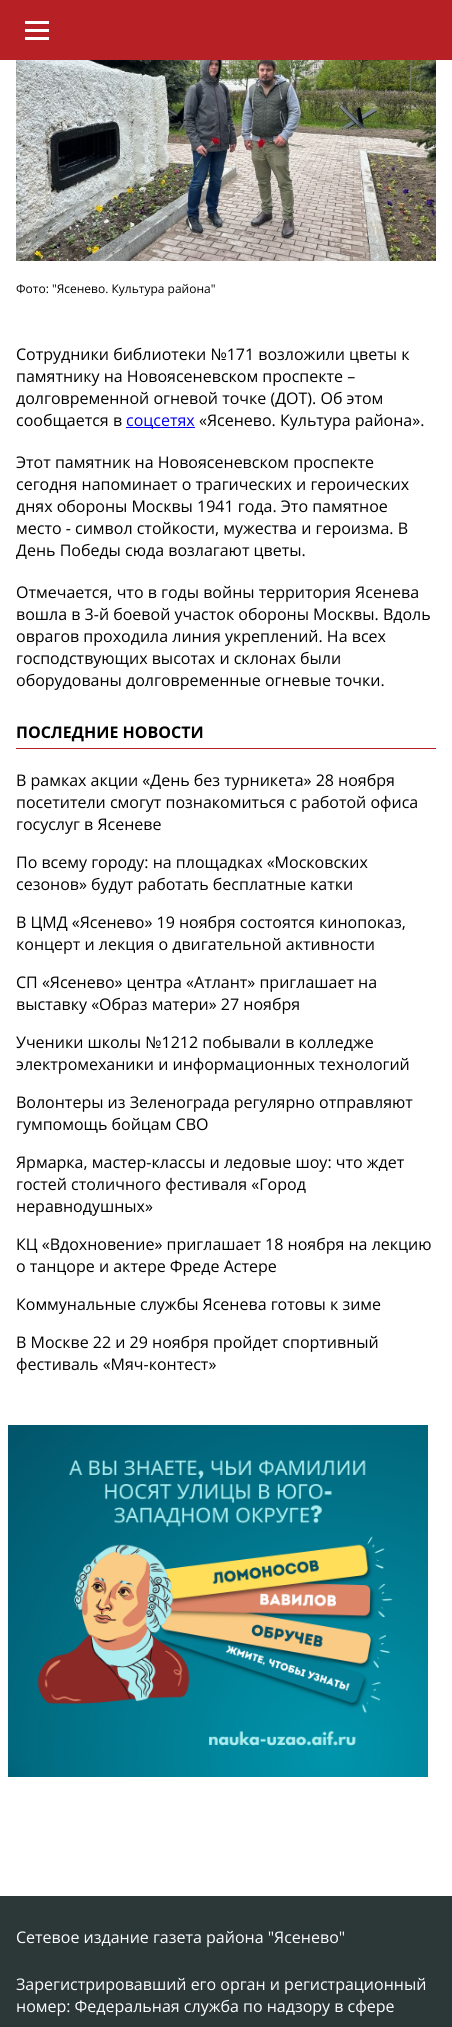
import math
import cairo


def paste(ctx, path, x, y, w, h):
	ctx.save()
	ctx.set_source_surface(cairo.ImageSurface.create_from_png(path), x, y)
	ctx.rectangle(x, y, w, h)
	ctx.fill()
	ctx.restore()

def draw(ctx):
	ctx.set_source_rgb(1, 1, 1)
	ctx.paint()
	ctx.set_source_rgb(0.718, 0.129, 0.149)
	ctx.rectangle(0, 0, 452, 60)
	ctx.fill()
	ctx.set_source_rgb(1, 1, 1)
	ctx.rectangle(25, 21, 24, 3)
	ctx.rectangle(25, 29, 24, 3)
	ctx.rectangle(25, 37, 24, 3)
	ctx.fill()
	paste(ctx, 'media/1.png', 16, 60, 420, 201)
	ctx.select_font_face('Open Sans')
	ctx.set_font_size(12)
	ctx.set_source_rgb(0, 0, 0)
	ctx.move_to(16, 293)
	ctx.show_text('Фото: "Ясенево. Культура района"')
	ctx.set_font_size(16)
	for x, y, s in [
		(16, 360, 'Сотрудники библиотеки №171 возложили цветы к'),
		(16, 382, 'памятнику на Новоясеневском проспекте –'),
		(16, 404, 'долговременной огневой точке (ДОТ). Об этом'),
		(16, 426, 'сообщается в'),
	]:
		ctx.move_to(x, y)
		ctx.show_text(s)
	ctx.set_source_rgb(0, 0, 0.933)
	ctx.rectangle(126, 427, 69, 1)
	ctx.fill()
	ctx.move_to(126, 426)
	ctx.show_text('соцсетях')
	ctx.set_source_rgb(0, 0, 0)
	for x, y, s in [
		(199, 426, '«Ясенево. Культура района».'),
		(16, 468, 'Этот памятник на Новоясеневском проспекте'),
		(16, 490, 'сегодня напоминает о трагических и героических'),
		(16, 512, 'днях обороны Москвы 1941 года. Это памятное'),
		(16, 534, 'место - символ стойкости, мужества и героизма. В'),
		(16, 556, 'День Победы сюда возлагают цветы.'),
		(16, 598, 'Отмечается, что в годы войны территория Ясенева'),
		(16, 620, 'вошла в 3-й боевой участок обороны Москвы. Вдоль'),
		(16, 642, 'оврагов проходила линия укреплений. На всех'),
		(16, 664, 'господствующих высотах и склонах были'),
		(16, 686, 'оборудованы долговременные огневые точки.'),
	]:
		ctx.move_to(x, y)
		ctx.show_text(s)
	ctx.set_source_rgb(0.718, 0.129, 0.149)
	ctx.rectangle(16, 748, 420, 1)
	ctx.fill()
	ctx.select_font_face('Open Sans', cairo.FONT_SLANT_NORMAL, cairo.FONT_WEIGHT_BOLD)
	ctx.set_source_rgb(0, 0, 0)
	ctx.move_to(16, 738)
	ctx.show_text('ПОСЛЕДНИЕ НОВОСТИ')
	ctx.select_font_face('Open Sans')
	for x, y, s in [
		(16, 786, 'В рамках акции «День без турникета» 28 ноября'),
		(16, 808, 'посетители смогут познакомиться с работой офиса'),
		(16, 830, 'госуслуг в Ясеневе'),
		(16, 868, 'По всему городу: на площадках «Московских'),
		(16, 890, 'сезонов» будут работать бесплатные катки'),
		(16, 928, 'В ЦМД «Ясенево» 19 ноября состоятся кинопоказ,'),
		(16, 950, 'концерт и лекция о двигательной активности'),
		(16, 988, 'СП «Ясенево» центра «Атлант» приглашает на'),
		(16, 1010, 'выставку «Образ матери» 27 ноября'),
		(16, 1048, 'Ученики школы №1212 побывали в колледже'),
		(16, 1070, 'электромеханики и информационных технологий'),
		(16, 1108, 'Волонтеры из Зеленограда регулярно отправляют'),
		(16, 1130, 'гумпомощь бойцам СВО'),
		(16, 1168, 'Ярмарка, мастер-классы и ледовые шоу: что ждет'),
		(16, 1190, 'гостей столичного фестиваля «Город'),
		(16, 1212, 'неравнодушных»'),
		(16, 1250, 'КЦ «Вдохновение» приглашает 18 ноября на лекцию'),
		(16, 1272, 'о танцоре и актере Фреде Астере'),
		(16, 1310, 'Коммунальные службы Ясенева готовы к зиме'),
		(16, 1348, 'В Москве 22 и 29 ноября пройдет спортивный'),
		(16, 1370, 'фестиваль «Мяч-контест»'),
	]:
		ctx.move_to(x, y)
		ctx.show_text(s)
	paste(ctx, 'media/2.png', 8, 1425, 420, 352)
	ctx.set_source_rgb(0.173, 0.22, 0.22)
	ctx.rectangle(0, 1896, 452, 131)
	ctx.fill()
	ctx.set_source_rgb(1, 1, 1)
	for x, y, s in [
		(16, 1943, 'Сетевое издание газета района "Ясенево"'),
		(16, 1990, 'Зарегистрировавший его орган и регистрационный'),
		(16, 2012, 'номер: Федеральная служба по надзору в сфере'),
	]:
		ctx.move_to(x, y)
		ctx.show_text(s)


surface = cairo.ImageSurface(cairo.FORMAT_RGB24, 452, 2027)
ctx = cairo.Context(surface)
options = cairo.FontOptions()
options.set_hint_metrics(cairo.HINT_METRICS_OFF)
options.set_hint_style(cairo.HINT_STYLE_NONE)
ctx.set_font_options(options)
ctx.set_miter_limit(4)
draw(ctx)
surface.write_to_png('image.png')
